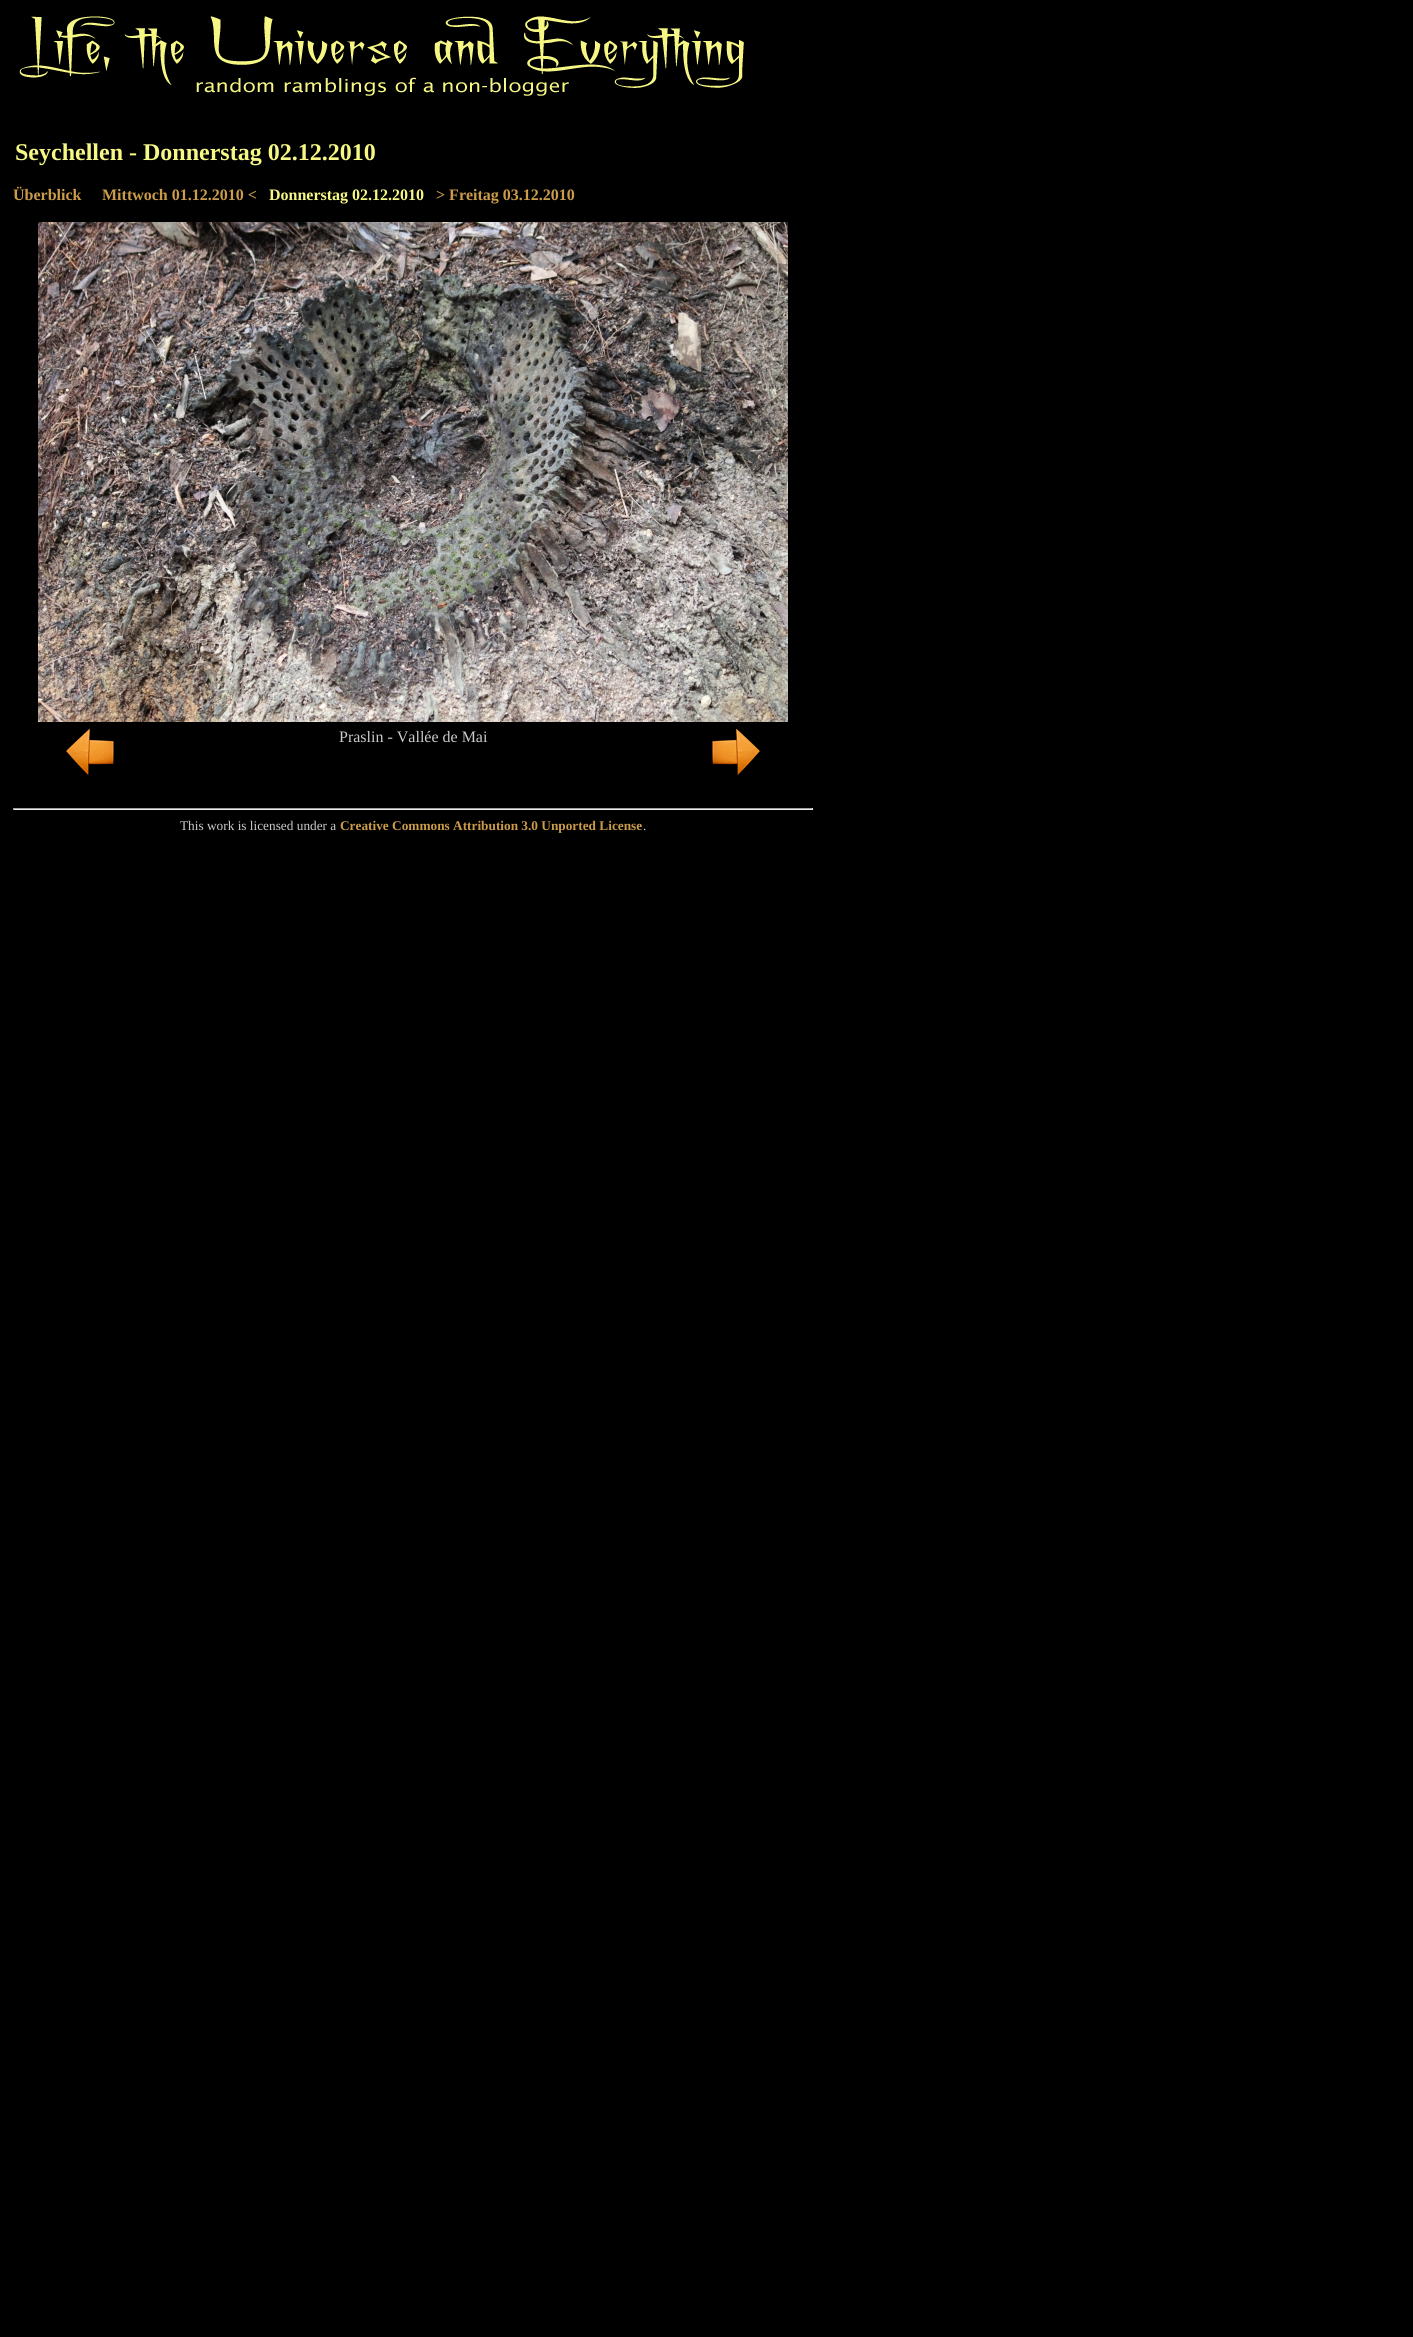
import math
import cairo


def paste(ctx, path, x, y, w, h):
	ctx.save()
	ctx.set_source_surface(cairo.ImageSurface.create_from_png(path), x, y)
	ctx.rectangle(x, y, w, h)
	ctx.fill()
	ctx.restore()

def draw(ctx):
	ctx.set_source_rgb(0, 0, 0)
	ctx.paint()
	paste(ctx, 'media/1.png', 19, 16, 725, 80)
	ctx.select_font_face('Liberation Serif', cairo.FONT_SLANT_NORMAL, cairo.FONT_WEIGHT_BOLD)
	ctx.set_font_size(24)
	ctx.set_source_rgb(0.961, 0.965, 0.518)
	ctx.move_to(15, 160)
	ctx.show_text('Seychellen - Donnerstag 02.12.2010')
	ctx.set_font_size(16)
	ctx.set_source_rgb(0.796, 0.612, 0.29)
	ctx.move_to(13, 200)
	ctx.show_text('Überblick')
	ctx.move_to(102, 200)
	ctx.show_text('Mittwoch 01.12.2010 <')
	ctx.set_source_rgb(0.961, 0.965, 0.518)
	ctx.move_to(269, 200)
	ctx.show_text('Donnerstag 02.12.2010')
	ctx.set_source_rgb(0.796, 0.612, 0.29)
	ctx.move_to(436, 200)
	ctx.show_text('> Freitag 03.12.2010')
	paste(ctx, 'media/2.png', 38, 222, 750, 500)
	paste(ctx, 'media/3.png', 66, 728, 48, 47)
	ctx.select_font_face('Liberation Serif')
	ctx.set_source_rgb(0.8, 0.8, 0.8)
	ctx.move_to(339, 742)
	ctx.show_text('Praslin - Vallée de Mai')
	paste(ctx, 'media/4.png', 712, 728, 48, 47)
	ctx.set_source_rgb(0.624, 0.624, 0.624)
	ctx.rectangle(13, 808, 800, 1)
	ctx.fill()
	ctx.set_source_rgb(0.933, 0.933, 0.933)
	ctx.rectangle(812, 808, 1, 2)
	ctx.rectangle(13, 809, 800, 1)
	ctx.fill()
	ctx.set_source_rgb(0.624, 0.624, 0.624)
	ctx.rectangle(13, 808, 1, 2)
	ctx.fill()
	ctx.set_font_size(13.3)
	ctx.set_source_rgb(0.8, 0.8, 0.8)
	ctx.move_to(180, 830)
	ctx.show_text('This work is licensed under a')
	ctx.select_font_face('Liberation Serif', cairo.FONT_SLANT_NORMAL, cairo.FONT_WEIGHT_BOLD)
	ctx.set_source_rgb(0.796, 0.612, 0.29)
	ctx.move_to(340, 830)
	ctx.show_text('Creative Commons Attribution 3.0 Unported License')
	ctx.select_font_face('Liberation Serif')
	ctx.set_source_rgb(0.8, 0.8, 0.8)
	ctx.move_to(643, 830)
	ctx.show_text('.')


surface = cairo.ImageSurface(cairo.FORMAT_RGB24, 1413, 2337)
ctx = cairo.Context(surface)
options = cairo.FontOptions()
options.set_hint_metrics(cairo.HINT_METRICS_OFF)
options.set_hint_style(cairo.HINT_STYLE_NONE)
ctx.set_font_options(options)
ctx.set_miter_limit(4)
draw(ctx)
surface.write_to_png('image.png')
